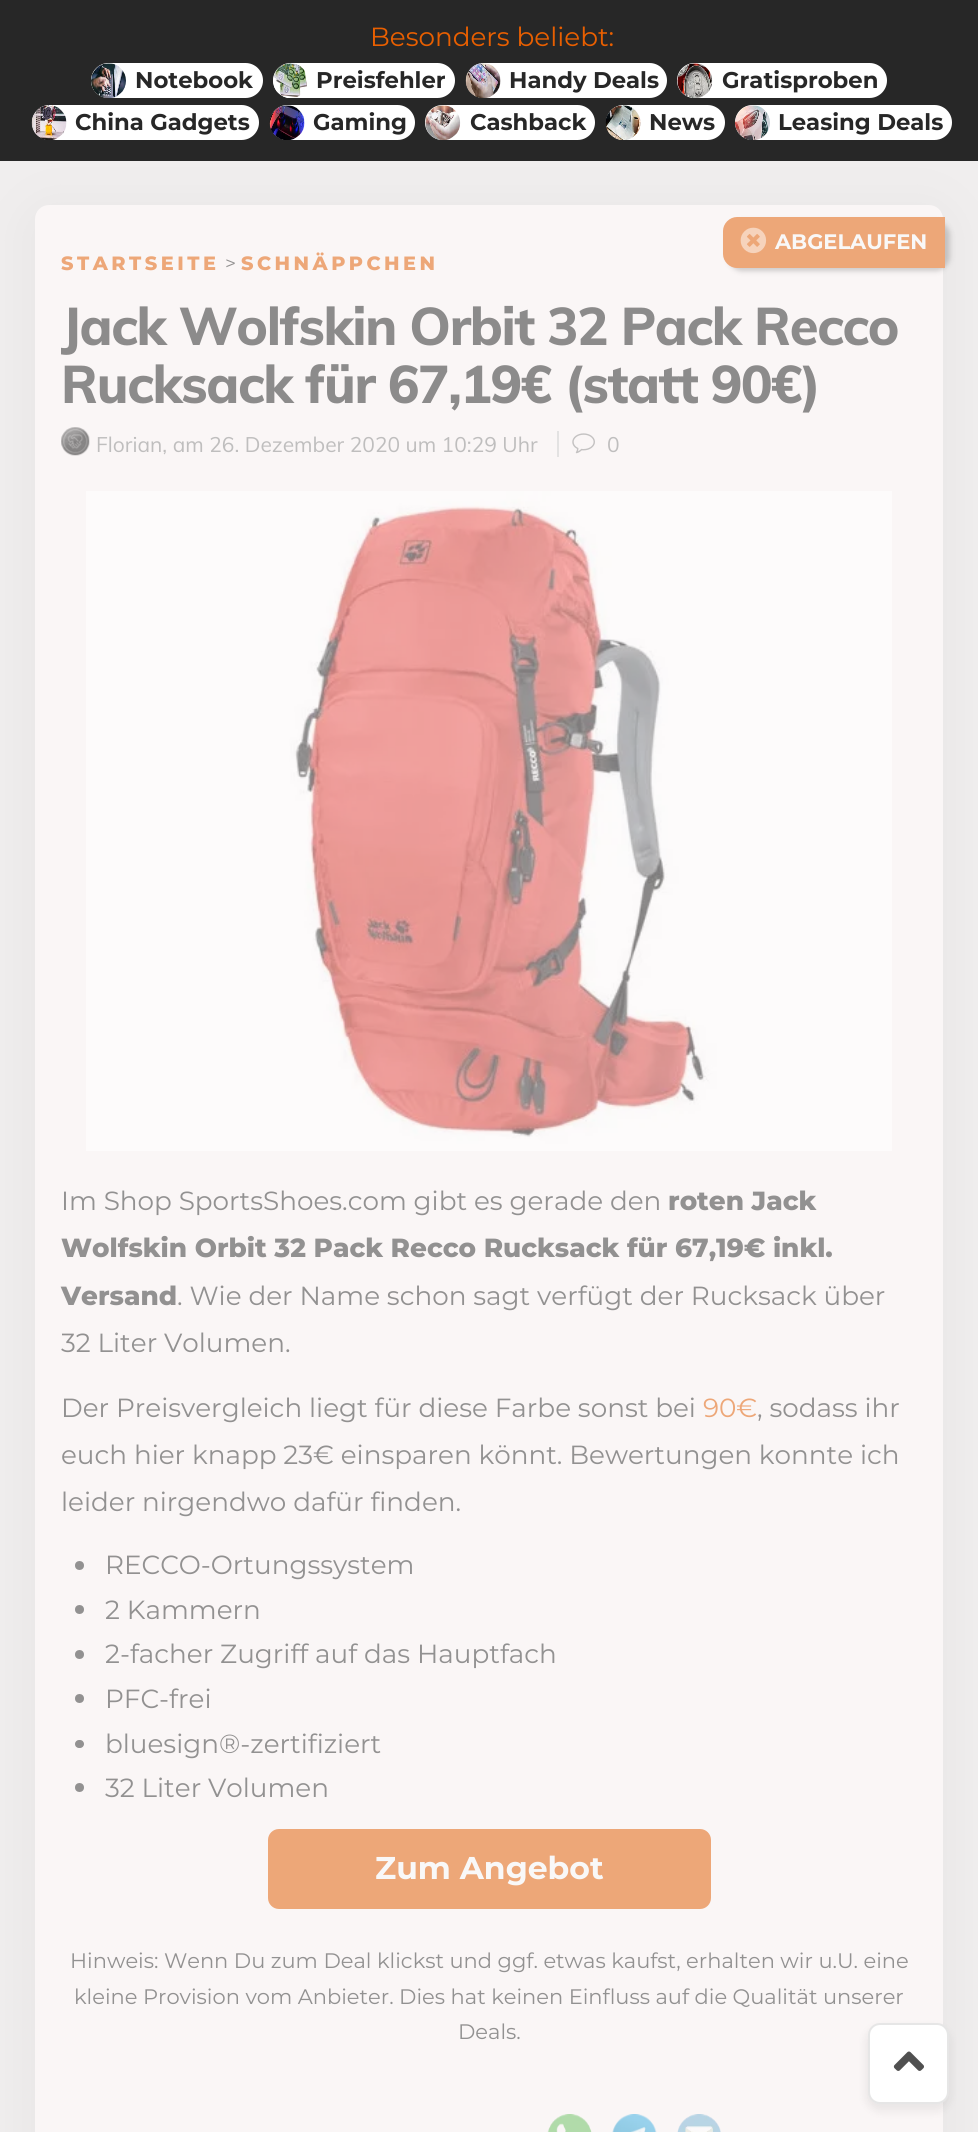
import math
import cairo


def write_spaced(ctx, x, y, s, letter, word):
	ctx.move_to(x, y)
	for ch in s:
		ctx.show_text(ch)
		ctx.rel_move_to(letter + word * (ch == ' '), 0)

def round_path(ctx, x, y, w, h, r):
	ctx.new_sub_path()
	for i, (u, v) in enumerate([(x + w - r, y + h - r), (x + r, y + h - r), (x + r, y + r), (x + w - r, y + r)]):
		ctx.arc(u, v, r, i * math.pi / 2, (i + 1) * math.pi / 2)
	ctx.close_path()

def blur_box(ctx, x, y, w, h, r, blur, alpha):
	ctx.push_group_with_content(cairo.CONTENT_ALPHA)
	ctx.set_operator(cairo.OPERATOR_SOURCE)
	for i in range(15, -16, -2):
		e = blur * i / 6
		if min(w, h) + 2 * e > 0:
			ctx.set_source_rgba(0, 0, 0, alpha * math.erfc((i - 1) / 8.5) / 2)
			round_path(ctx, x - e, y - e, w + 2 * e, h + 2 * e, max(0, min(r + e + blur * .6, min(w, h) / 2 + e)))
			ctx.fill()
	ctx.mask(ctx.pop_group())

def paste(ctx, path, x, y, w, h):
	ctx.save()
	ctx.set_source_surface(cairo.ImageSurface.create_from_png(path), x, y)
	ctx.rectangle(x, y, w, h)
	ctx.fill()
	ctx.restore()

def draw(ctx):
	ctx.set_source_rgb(0.153, 0.153, 0.153)
	ctx.paint()
	ctx.select_font_face('Montserrat')
	ctx.set_font_size(26.25)
	ctx.set_source_rgb(0.914, 0.373, 0)
	ctx.move_to(370, 46)
	ctx.show_text('Besonders beliebt:')
	ctx.set_source_rgb(1, 1, 1)
	round_path(ctx, 91, 63, 172, 35, 17.5)
	ctx.fill()
	paste(ctx, 'media/1.png', 91, 63, 35, 35)
	ctx.select_font_face('Montserrat', cairo.FONT_SLANT_NORMAL, cairo.FONT_WEIGHT_BOLD)
	ctx.set_font_size(22.75)
	ctx.set_source_rgb(0.153, 0.153, 0.153)
	ctx.move_to(135, 88)
	ctx.show_text('Notebook')
	ctx.set_source_rgb(1, 1, 1)
	round_path(ctx, 273, 63, 182, 35, 17.5)
	ctx.fill()
	paste(ctx, 'media/2.png', 273, 63, 34, 35)
	ctx.set_source_rgb(0.153, 0.153, 0.153)
	ctx.move_to(316, 88)
	ctx.show_text('Preisfehler')
	ctx.set_source_rgb(1, 1, 1)
	round_path(ctx, 466, 63, 201, 35, 17.5)
	ctx.fill()
	paste(ctx, 'media/3.png', 465, 63, 36, 35)
	ctx.set_source_rgb(0.153, 0.153, 0.153)
	ctx.move_to(509, 88)
	ctx.show_text('Handy Deals')
	ctx.set_source_rgb(1, 1, 1)
	round_path(ctx, 677, 63, 210, 35, 17.5)
	ctx.fill()
	paste(ctx, 'media/4.png', 677, 63, 36, 35)
	ctx.set_source_rgb(0.153, 0.153, 0.153)
	ctx.move_to(722, 88)
	ctx.show_text('Gratisproben')
	ctx.set_source_rgb(0.941, 0.933, 0.933)
	ctx.rectangle(0, 161, 978, 1971)
	ctx.fill()
	ctx.set_source_rgb(0.471, 0.467, 0.467)
	blur_box(ctx, 35, 215, 908, 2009, 14, 26, 0.1)
	ctx.set_source_rgb(1, 1, 1)
	round_path(ctx, 32, 105, 227, 35, 17.5)
	ctx.fill()
	paste(ctx, 'media/5.png', 31, 105, 36, 35)
	ctx.set_source_rgb(0.153, 0.153, 0.153)
	ctx.move_to(75, 130)
	ctx.show_text('China Gadgets')
	ctx.set_source_rgb(1, 1, 1)
	round_path(ctx, 270, 105, 145, 35, 17.5)
	ctx.fill()
	paste(ctx, 'media/6.png', 269, 105, 36, 35)
	ctx.set_source_rgb(0.153, 0.153, 0.153)
	ctx.move_to(313, 130)
	ctx.show_text('Gaming')
	ctx.set_source_rgb(1, 1, 1)
	round_path(ctx, 425, 105, 170, 35, 17.5)
	ctx.fill()
	paste(ctx, 'media/7.png', 425, 105, 36, 35)
	ctx.set_source_rgb(0.153, 0.153, 0.153)
	ctx.move_to(470, 130)
	ctx.show_text('Cashback')
	ctx.set_source_rgb(1, 1, 1)
	round_path(ctx, 606, 105, 119, 35, 17.5)
	ctx.fill()
	paste(ctx, 'media/8.png', 605, 105, 36, 35)
	ctx.set_source_rgb(0.153, 0.153, 0.153)
	ctx.move_to(649, 130)
	ctx.show_text('News')
	ctx.set_source_rgb(1, 1, 1)
	round_path(ctx, 735, 105, 217, 35, 17.5)
	ctx.fill()
	paste(ctx, 'media/9.png', 735, 105, 35, 35)
	ctx.set_source_rgb(0.153, 0.153, 0.153)
	ctx.move_to(778, 130)
	ctx.show_text('Leasing Deals')
	ctx.set_source_rgb(0.98, 0.961, 0.961)
	round_path(ctx, 35, 205, 908, 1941, 14)
	ctx.fill()
	ctx.set_source_rgb(0.471, 0.467, 0.467)
	blur_box(ctx, 728, 221, 222, 50, 14, 2.5, 0.35)
	ctx.set_source_rgb(0.929, 0.655, 0.471)
	ctx.new_path()
	ctx.move_to(737, 217)
	ctx.line_to(945, 217)
	ctx.line_to(945, 268)
	ctx.line_to(737, 268)
	ctx.curve_to(729.5, 268, 723, 261.5, 723, 254)
	ctx.line_to(723, 231)
	ctx.curve_to(723, 223.5, 729.5, 217, 737, 217)
	ctx.close_path()
	ctx.fill()
	paste(ctx, 'media/10.png', 740, 227, 27, 27)
	ctx.set_font_size(21)
	ctx.set_source_rgb(0.973, 0.969, 0.969)
	ctx.move_to(775, 249)
	ctx.show_text('ABGELAUFEN')
	ctx.select_font_face('Muli ExtraBold')
	ctx.set_font_size(52.5)
	ctx.set_source_rgb(0.549, 0.545, 0.545)
	write_spaced(ctx, 61, 345, 'Jack Wolfskin Orbit 32 Pack Recco', -1.4, 0)
	write_spaced(ctx, 61, 403, 'Rucksack für 67,19€ (statt 90€)', -1.4, 0)
	ctx.set_source_rgb(0.89, 0.886, 0.886)
	ctx.rectangle(557, 431, 2, 26)
	ctx.fill()
	paste(ctx, 'media/11.png', 61, 427, 29, 29)
	ctx.select_font_face('Muli')
	ctx.set_font_size(21)
	ctx.set_source_rgb(0.749, 0.745, 0.745)
	ctx.move_to(96, 452)
	ctx.show_text('Florian, am 26. Dezember 2020 um 10:29 Uhr')
	paste(ctx, 'media/12.png', 572, 433, 23, 21)
	ctx.move_to(607, 452)
	ctx.show_text('0')
	ctx.select_font_face('Montserrat ExtraBold')
	ctx.set_font_size(19.25)
	ctx.set_source_rgb(0.929, 0.655, 0.471)
	write_spaced(ctx, 61, 270, 'STARTSEITE', 3.5, 0)
	ctx.select_font_face('Montserrat')
	ctx.set_source_rgb(0.573, 0.569, 0.569)
	ctx.move_to(225, 270)
	ctx.show_text('>')
	ctx.select_font_face('Montserrat ExtraBold')
	ctx.set_source_rgb(0.929, 0.655, 0.471)
	write_spaced(ctx, 241, 270, 'SCHNÄPPCHEN', 3.5, 0)
	paste(ctx, 'media/13.png', 86, 491, 806, 660)
	ctx.select_font_face('Montserrat')
	ctx.set_font_size(26.25)
	ctx.set_source_rgb(0.573, 0.569, 0.569)
	ctx.move_to(61, 1210)
	ctx.show_text('Im Shop SportsShoes.com gibt es gerade den')
	ctx.select_font_face('Montserrat ExtraBold')
	for x, y, s in [
		(668, 1210, 'roten Jack'),
		(61, 1257, 'Wolfskin Orbit 32 Pack Recco Rucksack für 67,19€ inkl.'),
		(61, 1305, 'Versand'),
	]:
		ctx.move_to(x, y)
		ctx.show_text(s)
	ctx.select_font_face('Montserrat')
	for x, y, s in [
		(177, 1305, '. Wie der Name schon sagt verfügt der Rucksack über'),
		(61, 1352, '32 Liter Volumen.'),
		(61, 1417, 'Der Preisvergleich liegt für diese Farbe sonst bei'),
	]:
		ctx.move_to(x, y)
		ctx.show_text(s)
	ctx.set_source_rgb(0.929, 0.655, 0.471)
	ctx.move_to(703, 1417)
	ctx.show_text('90€')
	ctx.set_source_rgb(0.573, 0.569, 0.569)
	for x, y, s in [
		(757, 1417, ', sodass ihr'),
		(61, 1464, 'euch hier knapp 23€ einsparen könnt. Bewertungen konnte ich'),
		(61, 1511, 'leider nirgendwo dafür finden.'),
	]:
		ctx.move_to(x, y)
		ctx.show_text(s)
	ctx.new_path()
	ctx.arc(79.5, 1565.5, 4.5, 0, 2 * math.pi)
	ctx.fill()
	ctx.move_to(105, 1574)
	ctx.show_text('RECCO-Ortungssystem')
	ctx.new_path()
	ctx.arc(79.5, 1609.5, 4.5, 0, 2 * math.pi)
	ctx.fill()
	ctx.move_to(105, 1619)
	ctx.show_text('2 Kammern')
	ctx.new_path()
	ctx.arc(79.5, 1654.5, 4.5, 0, 2 * math.pi)
	ctx.fill()
	ctx.move_to(105, 1663)
	ctx.show_text('2-facher Zugriff auf das Hauptfach')
	ctx.new_path()
	ctx.arc(79.5, 1698.5, 4.5, 0, 2 * math.pi)
	ctx.fill()
	ctx.move_to(105, 1708)
	ctx.show_text('PFC-frei')
	round_path(ctx, 75, 1740, 9, 8, 4)
	ctx.fill()
	ctx.move_to(105, 1753)
	ctx.show_text('bluesign®-zertifiziert')
	ctx.new_path()
	ctx.arc(79.5, 1787.5, 4.5, 0, 2 * math.pi)
	ctx.fill()
	ctx.move_to(105, 1797)
	ctx.show_text('32 Liter Volumen')
	ctx.set_source_rgb(0.929, 0.655, 0.471)
	round_path(ctx, 269, 1830, 441, 78, 10)
	ctx.fill_preserve()
	ctx.stroke()
	ctx.select_font_face('Montserrat', cairo.FONT_SLANT_NORMAL, cairo.FONT_WEIGHT_BOLD)
	ctx.set_font_size(31.5)
	ctx.set_source_rgb(0.973, 0.969, 0.969)
	ctx.move_to(375, 1879)
	ctx.show_text('Zum Angebot')
	ctx.select_font_face('Montserrat')
	ctx.set_font_size(21)
	ctx.set_source_rgb(0.573, 0.569, 0.569)
	for x, y, s in [
		(70, 1968, 'Hinweis: Wenn Du zum Deal klickst und ggf. etwas kaufst, erhalten wir u.U. eine'),
		(74, 2004, 'kleine Provision vom Anbieter. Dies hat keinen Einfluss auf die Qualität unserer'),
		(458, 2039, 'Deals.'),
	]:
		ctx.move_to(x, y)
		ctx.show_text(s)
	paste(ctx, 'media/14.png', 547, 2114, 45, 18)
	paste(ctx, 'media/15.png', 612, 2114, 45, 18)
	paste(ctx, 'media/16.png', 677, 2114, 44, 18)
	ctx.set_source_rgb(0, 0, 0)
	blur_box(ctx, 866, 2027, 84, 84, 14, 5, 0.07)
	ctx.set_source_rgb(1, 1, 1)
	round_path(ctx, 868, 2023, 81, 81, 12)
	ctx.fill()
	round_path(ctx, 869, 2024, 79, 79, 11)
	ctx.set_source_rgba(0, 0, 0, 0.1)
	ctx.stroke()
	paste(ctx, 'media/17.png', 893, 2051, 31, 20)


surface = cairo.ImageSurface(cairo.FORMAT_RGB24, 978, 2132)
ctx = cairo.Context(surface)
options = cairo.FontOptions()
options.set_hint_metrics(cairo.HINT_METRICS_OFF)
options.set_hint_style(cairo.HINT_STYLE_NONE)
ctx.set_font_options(options)
ctx.set_miter_limit(4)
draw(ctx)
surface.write_to_png('image.png')
